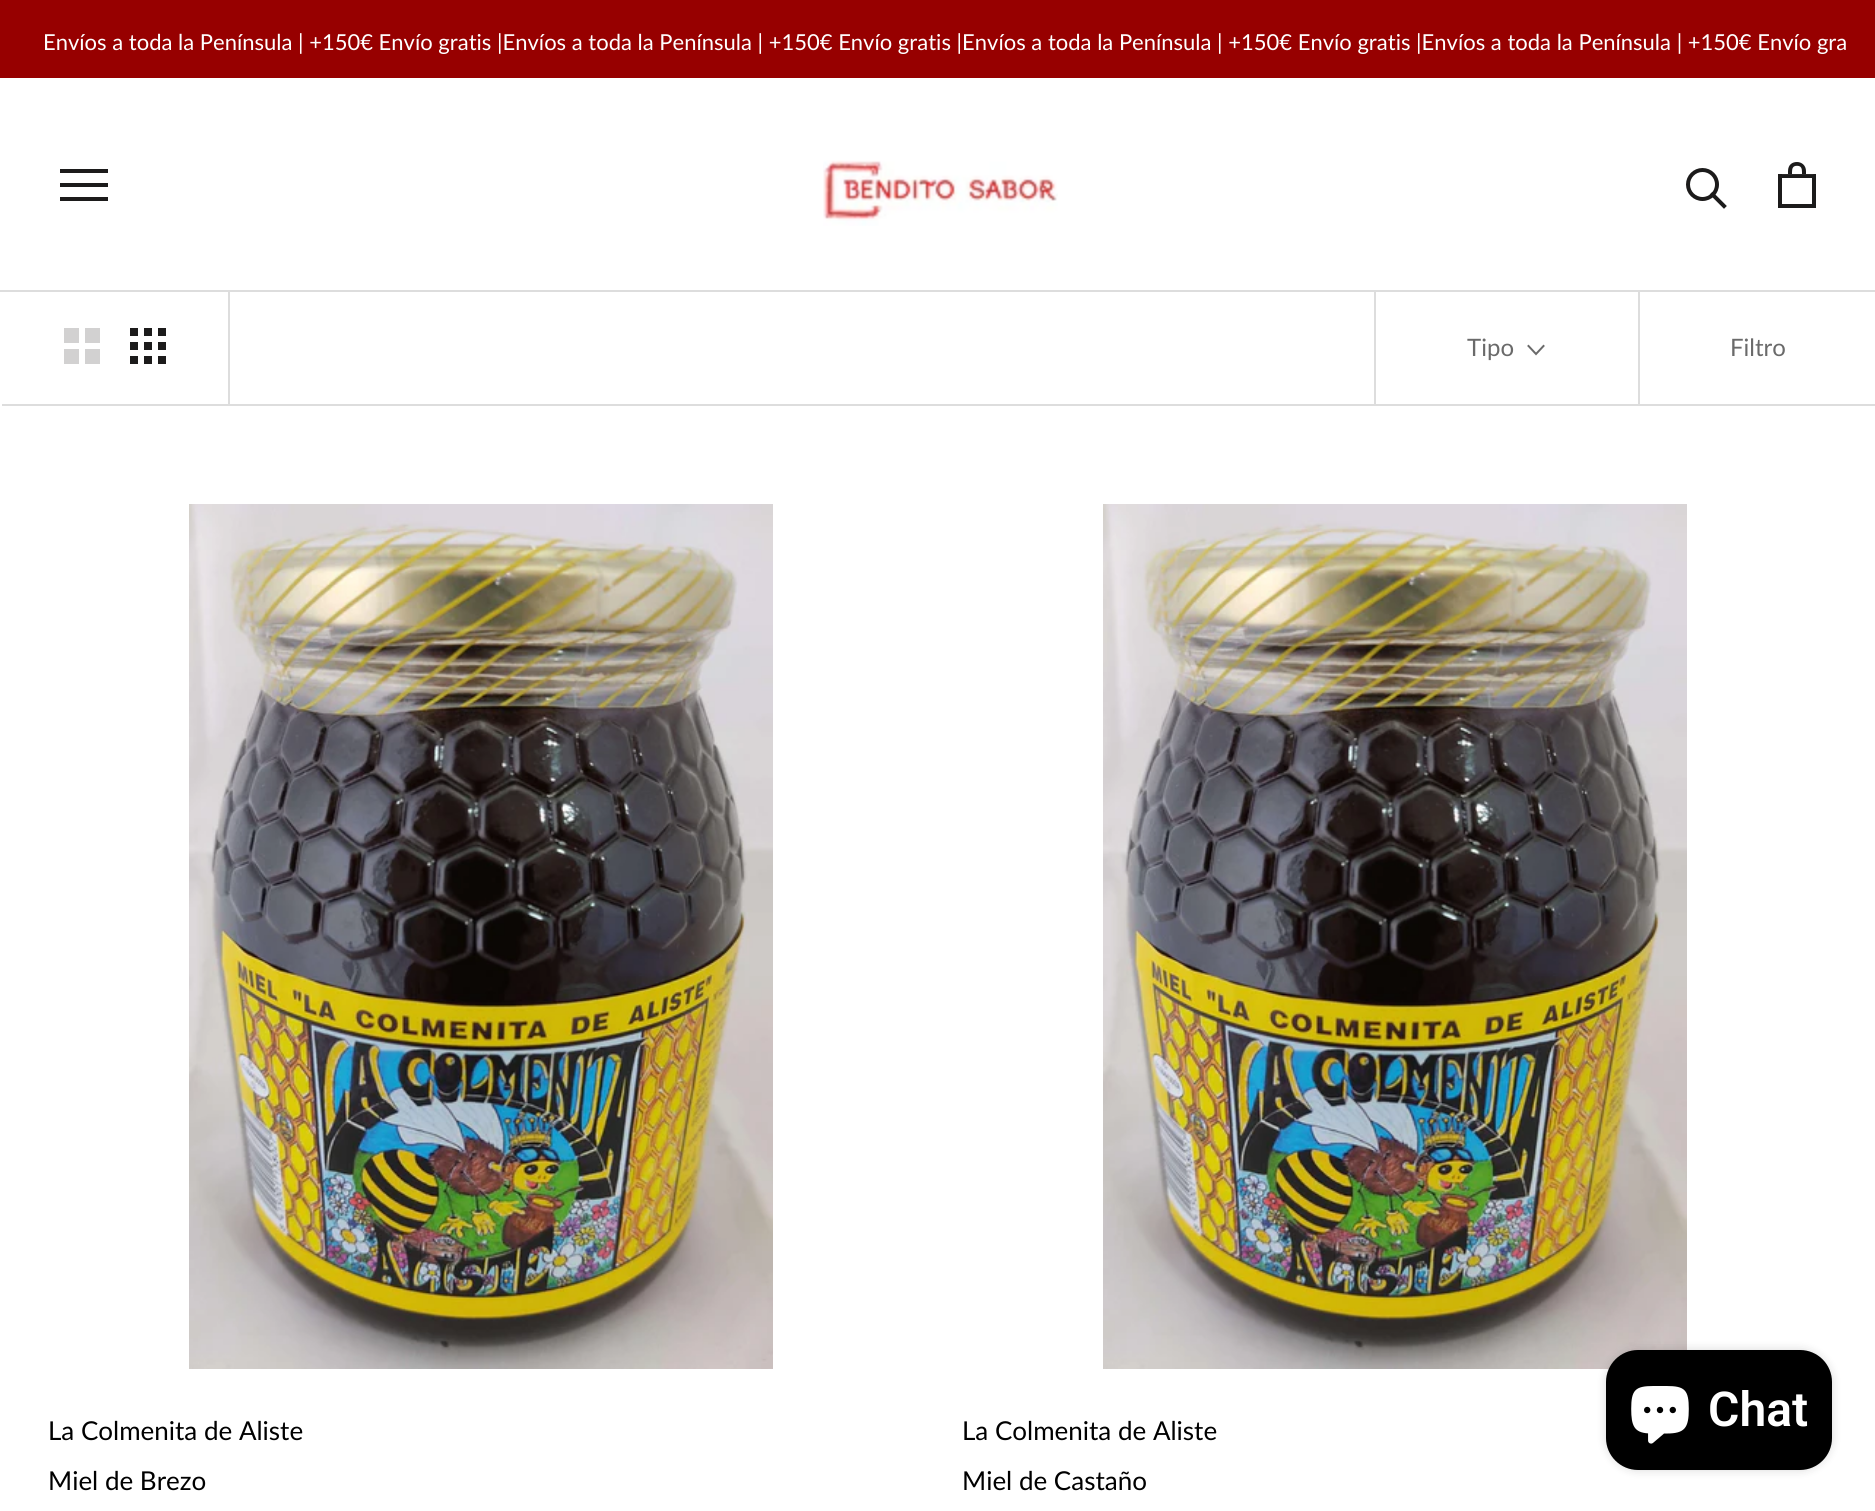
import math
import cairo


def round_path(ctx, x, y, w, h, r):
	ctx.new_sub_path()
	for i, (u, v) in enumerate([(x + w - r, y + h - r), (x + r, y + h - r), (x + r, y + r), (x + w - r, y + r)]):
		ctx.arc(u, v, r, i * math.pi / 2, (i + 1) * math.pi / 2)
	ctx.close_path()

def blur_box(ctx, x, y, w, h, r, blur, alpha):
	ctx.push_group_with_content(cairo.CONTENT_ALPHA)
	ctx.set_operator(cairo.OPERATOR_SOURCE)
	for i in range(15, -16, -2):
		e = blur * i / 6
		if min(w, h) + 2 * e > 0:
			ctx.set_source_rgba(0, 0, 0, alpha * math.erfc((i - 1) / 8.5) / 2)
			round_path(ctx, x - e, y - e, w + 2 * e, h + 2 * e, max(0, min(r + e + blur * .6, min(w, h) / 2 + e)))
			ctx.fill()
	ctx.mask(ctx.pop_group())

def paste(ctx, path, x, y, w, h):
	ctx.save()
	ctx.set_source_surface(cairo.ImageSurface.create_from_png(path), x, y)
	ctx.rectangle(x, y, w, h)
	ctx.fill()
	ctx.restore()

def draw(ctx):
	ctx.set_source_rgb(1, 1, 1)
	ctx.paint()
	ctx.set_source_rgb(0.592, 0, 0)
	ctx.rectangle(0, 0, 1875, 78)
	ctx.fill()
	ctx.select_font_face('Lato')
	ctx.set_font_size(22)
	ctx.set_source_rgb(1, 1, 1)
	ctx.move_to(43, 50)
	ctx.show_text('Envíos a toda la Península | +150€ Envío gratis |Envíos a toda la Península | +150€ Envío gratis |Envíos a toda la Península | +150€ Envío gratis |Envíos a toda la Península | +150€ Envío gra')
	ctx.set_source_rgb(0.867, 0.867, 0.867)
	ctx.rectangle(0, 290, 1875, 2)
	ctx.fill()
	ctx.set_source_rgb(0.11, 0.106, 0.106)
	ctx.new_path()
	ctx.move_to(60, 201)
	ctx.line_to(60, 197)
	ctx.line_to(108, 197)
	ctx.line_to(108, 201)
	ctx.close_path()
	ctx.move_to(60, 183)
	ctx.line_to(108, 183)
	ctx.line_to(108, 187)
	ctx.line_to(60, 187)
	ctx.close_path()
	ctx.move_to(60, 169)
	ctx.line_to(108, 169)
	ctx.line_to(108, 173)
	ctx.line_to(60, 173)
	ctx.close_path()
	ctx.fill()
	paste(ctx, 'media/1.png', 823, 160, 235, 66)
	ctx.new_path()
	ctx.move_to(1724, 206)
	ctx.line_to(1712.5, 194.5)
	ctx.set_line_width(4)
	ctx.set_line_cap(cairo.LINE_CAP_SQUARE)
	ctx.stroke()
	ctx.arc(1702.5, 184.5, 14.5, 0, 2 * math.pi)
	ctx.set_line_cap(cairo.LINE_CAP_BUTT)
	ctx.stroke()
	paste(ctx, 'media/2.png', 1778, 162, 38, 46)
	ctx.set_source_rgb(0.867, 0.867, 0.867)
	ctx.new_path()
	ctx.move_to(2, 404)
	ctx.line_to(2, 406)
	ctx.line_to(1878, 406)
	ctx.line_to(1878, 294)
	ctx.line_to(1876, 294)
	ctx.line_to(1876, 404)
	ctx.close_path()
	ctx.fill()
	ctx.rectangle(228, 292, 2, 112)
	ctx.fill()
	paste(ctx, 'media/3.png', 64, 328, 36, 36)
	paste(ctx, 'media/4.png', 130, 328, 36, 36)
	ctx.rectangle(1374, 292, 2, 112)
	ctx.fill()
	ctx.set_font_size(24)
	ctx.set_source_rgb(0.416, 0.416, 0.416)
	ctx.move_to(1467, 356)
	ctx.show_text('Tipo')
	ctx.new_path()
	ctx.move_to(1543.5, 346)
	ctx.line_to(1536, 354)
	ctx.line_to(1528.5, 346)
	ctx.set_line_width(2)
	ctx.set_line_cap(cairo.LINE_CAP_SQUARE)
	ctx.stroke()
	ctx.set_source_rgb(0.867, 0.867, 0.867)
	ctx.rectangle(1638, 292, 2, 112)
	ctx.fill()
	ctx.set_source_rgb(0.416, 0.416, 0.416)
	ctx.move_to(1730, 356)
	ctx.show_text('Filtro')
	paste(ctx, 'media/5.png', 189, 504, 584, 865)
	ctx.set_font_size(26)
	ctx.set_source_rgb(0, 0, 0)
	ctx.move_to(48, 1440)
	ctx.show_text('La Colmenita de Aliste')
	ctx.move_to(48, 1490)
	ctx.show_text('Miel de Brezo')
	paste(ctx, 'media/6.png', 1103, 504, 584, 865)
	ctx.move_to(962, 1440)
	ctx.show_text('La Colmenita de Aliste')
	ctx.move_to(962, 1490)
	ctx.show_text('Miel de Castaño')
	ctx.set_source_rgb(0, 0, 0)
	blur_box(ctx, 1606, 1350, 226, 120, 32, 5, 0.15)
	ctx.set_source_rgb(0, 0, 0)
	round_path(ctx, 1606, 1350, 226, 120, 32)
	ctx.fill()
	paste(ctx, 'media/7.png', 1631, 1386, 58, 58)
	ctx.select_font_face('Roboto SemiBold')
	ctx.set_font_size(48)
	ctx.set_source_rgb(1, 1, 1)
	ctx.move_to(1708, 1426)
	ctx.show_text('Chat')


surface = cairo.ImageSurface(cairo.FORMAT_RGB24, 1875, 1511)
ctx = cairo.Context(surface)
options = cairo.FontOptions()
options.set_hint_metrics(cairo.HINT_METRICS_OFF)
options.set_hint_style(cairo.HINT_STYLE_NONE)
ctx.set_font_options(options)
ctx.set_miter_limit(4)
draw(ctx)
surface.write_to_png('image.png')
